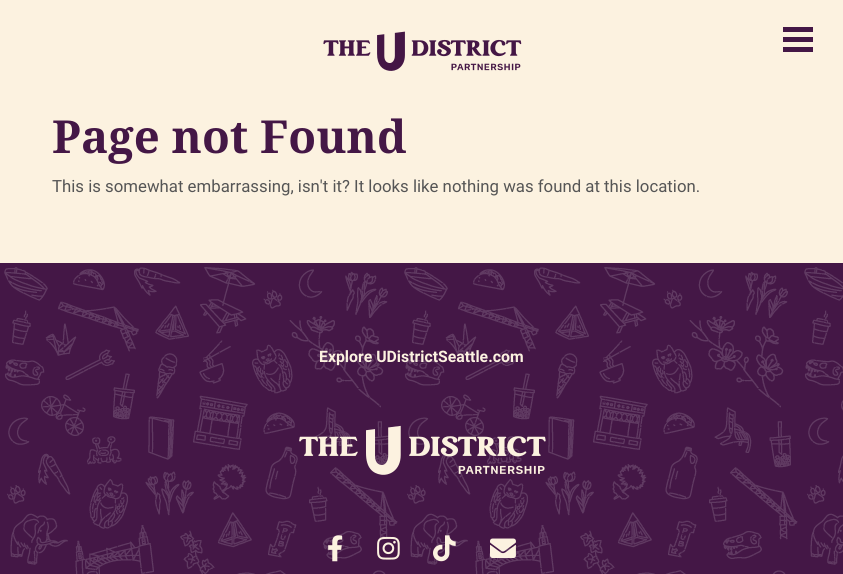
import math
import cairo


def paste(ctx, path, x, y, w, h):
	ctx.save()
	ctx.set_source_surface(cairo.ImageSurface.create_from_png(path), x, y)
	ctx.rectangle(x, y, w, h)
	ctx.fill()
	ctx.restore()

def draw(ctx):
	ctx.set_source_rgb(0.988, 0.949, 0.878)
	ctx.paint()
	paste(ctx, 'media/1.png', 323, 31, 199, 40)
	ctx.set_source_rgb(0.267, 0.09, 0.275)
	ctx.rectangle(783, 27, 30, 5)
	ctx.rectangle(783, 37, 30, 5)
	ctx.rectangle(783, 47, 30, 5)
	ctx.fill()
	ctx.select_font_face('Noto Serif', cairo.FONT_SLANT_NORMAL, cairo.FONT_WEIGHT_BOLD)
	ctx.set_font_size(45.5)
	ctx.move_to(52, 153)
	ctx.show_text('Page not Found')
	ctx.select_font_face('Roboto')
	ctx.set_font_size(16.8)
	ctx.set_source_rgb(0.333, 0.333, 0.333)
	ctx.move_to(52, 192)
	ctx.show_text('This is somewhat embarrassing, isn\'t it? It looks like nothing was found at this location.')
	ctx.set_source_rgb(0.267, 0.09, 0.275)
	ctx.rectangle(0, 263, 843, 311)
	ctx.fill()
	paste(ctx, 'media/2.png', 4, 267, 839, 307)
	ctx.select_font_face('Roboto', cairo.FONT_SLANT_NORMAL, cairo.FONT_WEIGHT_BOLD)
	ctx.set_font_size(15.8)
	ctx.set_source_rgb(0.988, 0.949, 0.878)
	ctx.move_to(319, 362)
	ctx.show_text('Explore UDistrictSeattle.com')
	paste(ctx, 'media/3.png', 299, 425, 247, 50)
	paste(ctx, 'media/4.png', 328, 535, 15, 27)
	paste(ctx, 'media/5.png', 377, 536, 23, 24)
	paste(ctx, 'media/6.png', 433, 535, 23, 27)
	paste(ctx, 'media/7.png', 490, 538, 26, 20)


surface = cairo.ImageSurface(cairo.FORMAT_RGB24, 843, 574)
ctx = cairo.Context(surface)
options = cairo.FontOptions()
options.set_hint_metrics(cairo.HINT_METRICS_OFF)
options.set_hint_style(cairo.HINT_STYLE_NONE)
ctx.set_font_options(options)
ctx.set_miter_limit(4)
draw(ctx)
surface.write_to_png('image.png')
